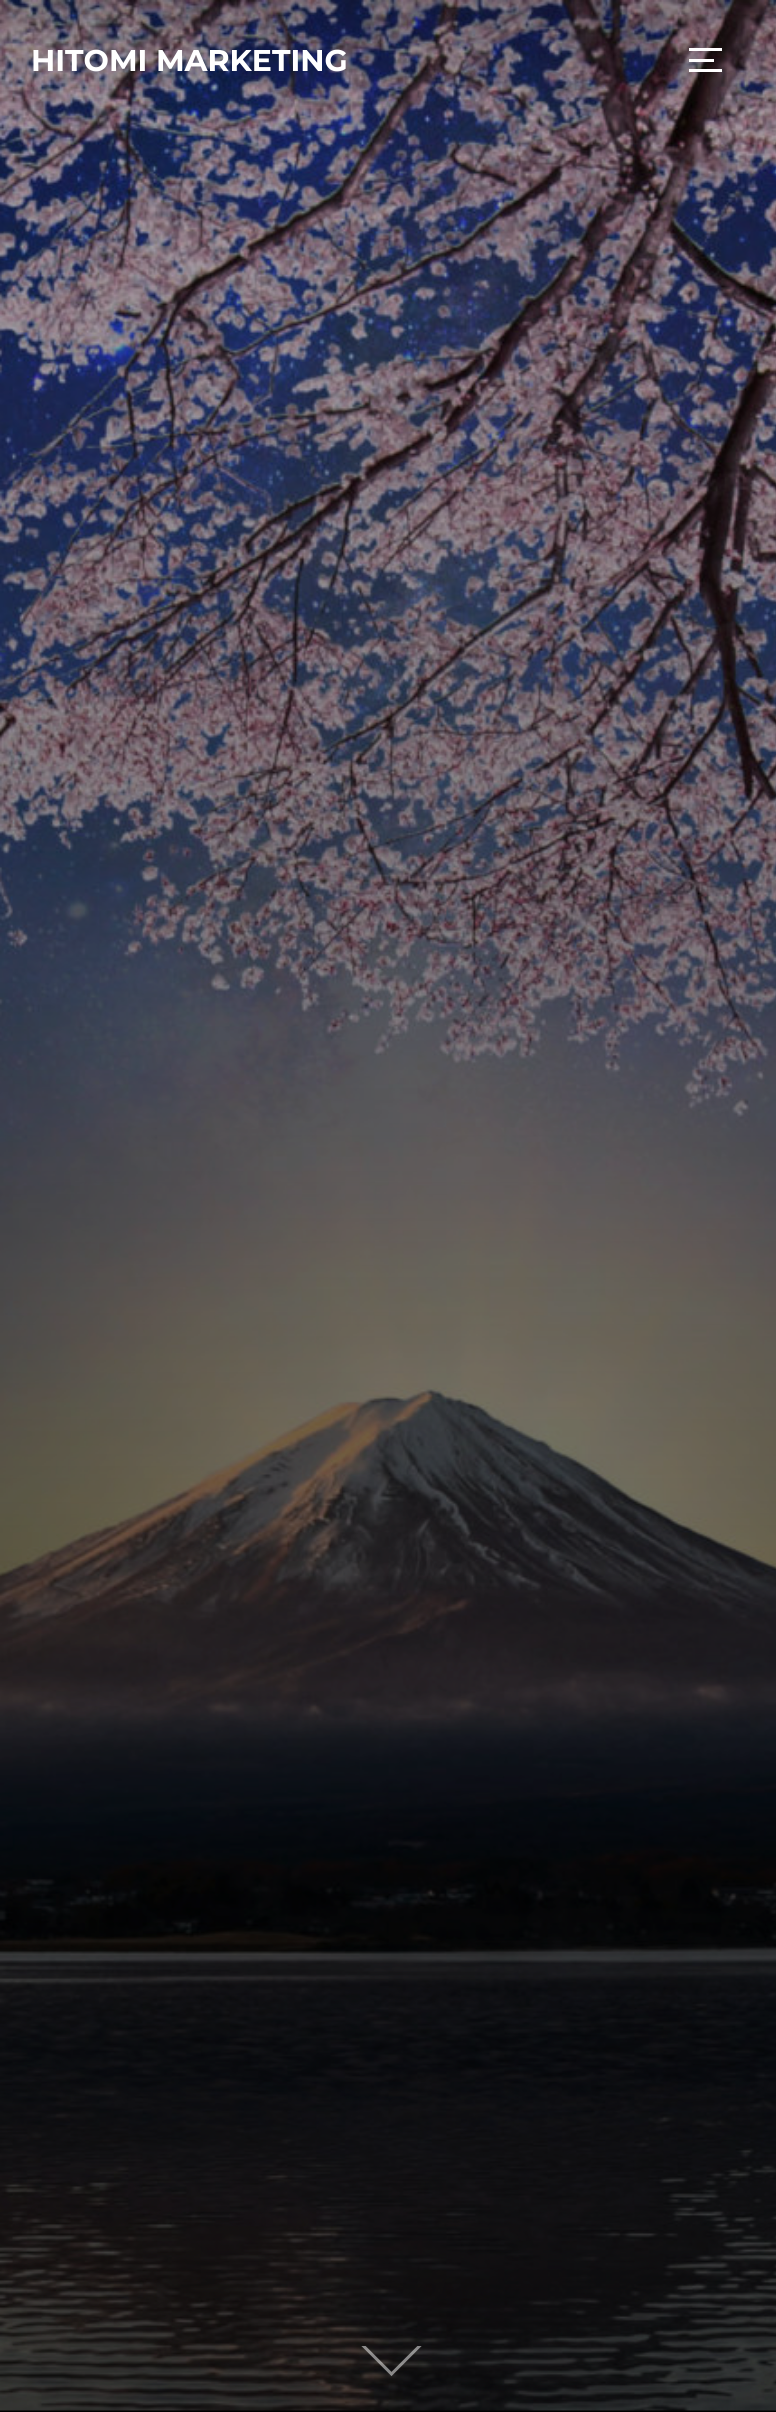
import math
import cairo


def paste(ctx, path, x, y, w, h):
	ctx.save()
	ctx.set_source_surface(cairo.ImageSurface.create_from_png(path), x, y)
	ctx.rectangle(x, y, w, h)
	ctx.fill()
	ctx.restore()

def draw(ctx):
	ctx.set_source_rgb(0, 0, 0)
	ctx.paint()
	paste(ctx, 'media/1.png', 0, 0, 776, 2411)
	gradient = cairo.LinearGradient(388, 0, 389, 2412)
	gradient.add_color_stop_rgba(0, 0, 0, 0, 0.3)
	gradient.add_color_stop_rgba(1, 0, 0, 0, 0.5)
	ctx.set_source(gradient)
	ctx.rectangle(0, 0, 776, 2411)
	ctx.fill()
	gradient = cairo.LinearGradient(388, 0, 389, 2412)
	gradient.add_color_stop_rgba(0, 0, 0, 0, 0)
	gradient.add_color_stop_rgba(0.75, 0, 0, 0, 0.3)
	gradient.add_color_stop_rgba(1, 0, 0, 0, 0.3)
	ctx.set_source(gradient)
	ctx.rectangle(0, 130, 776, 2281)
	ctx.fill()
	ctx.save()
	ctx.rectangle(347, 2346, 84, 36)
	ctx.clip()
	ctx.new_path()
	ctx.move_to(391.5, 2315)
	ctx.line_to(421, 2344.5)
	ctx.line_to(391.5, 2374)
	ctx.line_to(362, 2344.5)
	ctx.close_path()
	ctx.set_source_rgba(1, 1, 1, 0.5)
	ctx.set_line_width(3)
	ctx.stroke()
	ctx.restore()
	gradient = cairo.LinearGradient(389, 0, 389, 120)
	gradient.add_color_stop_rgba(0.01, 0, 0, 0, 0.2)
	gradient.add_color_stop_rgba(1, 0, 0, 0, 0)
	ctx.set_source(gradient)
	ctx.rectangle(0, 0, 776, 107)
	ctx.fill()
	ctx.select_font_face('Montserrat', cairo.FONT_SLANT_NORMAL, cairo.FONT_WEIGHT_BOLD)
	ctx.set_font_size(30)
	ctx.set_source_rgb(1, 1, 1)
	ctx.move_to(31, 71)
	ctx.show_text('HITOMI MARKETING')
	ctx.rectangle(689, 48, 33, 3)
	ctx.rectangle(689, 59, 25, 3)
	ctx.rectangle(689, 69, 33, 3)
	ctx.fill()


surface = cairo.ImageSurface(cairo.FORMAT_RGB24, 776, 2412)
ctx = cairo.Context(surface)
options = cairo.FontOptions()
options.set_hint_metrics(cairo.HINT_METRICS_OFF)
options.set_hint_style(cairo.HINT_STYLE_NONE)
ctx.set_font_options(options)
ctx.set_miter_limit(4)
draw(ctx)
surface.write_to_png('image.png')
